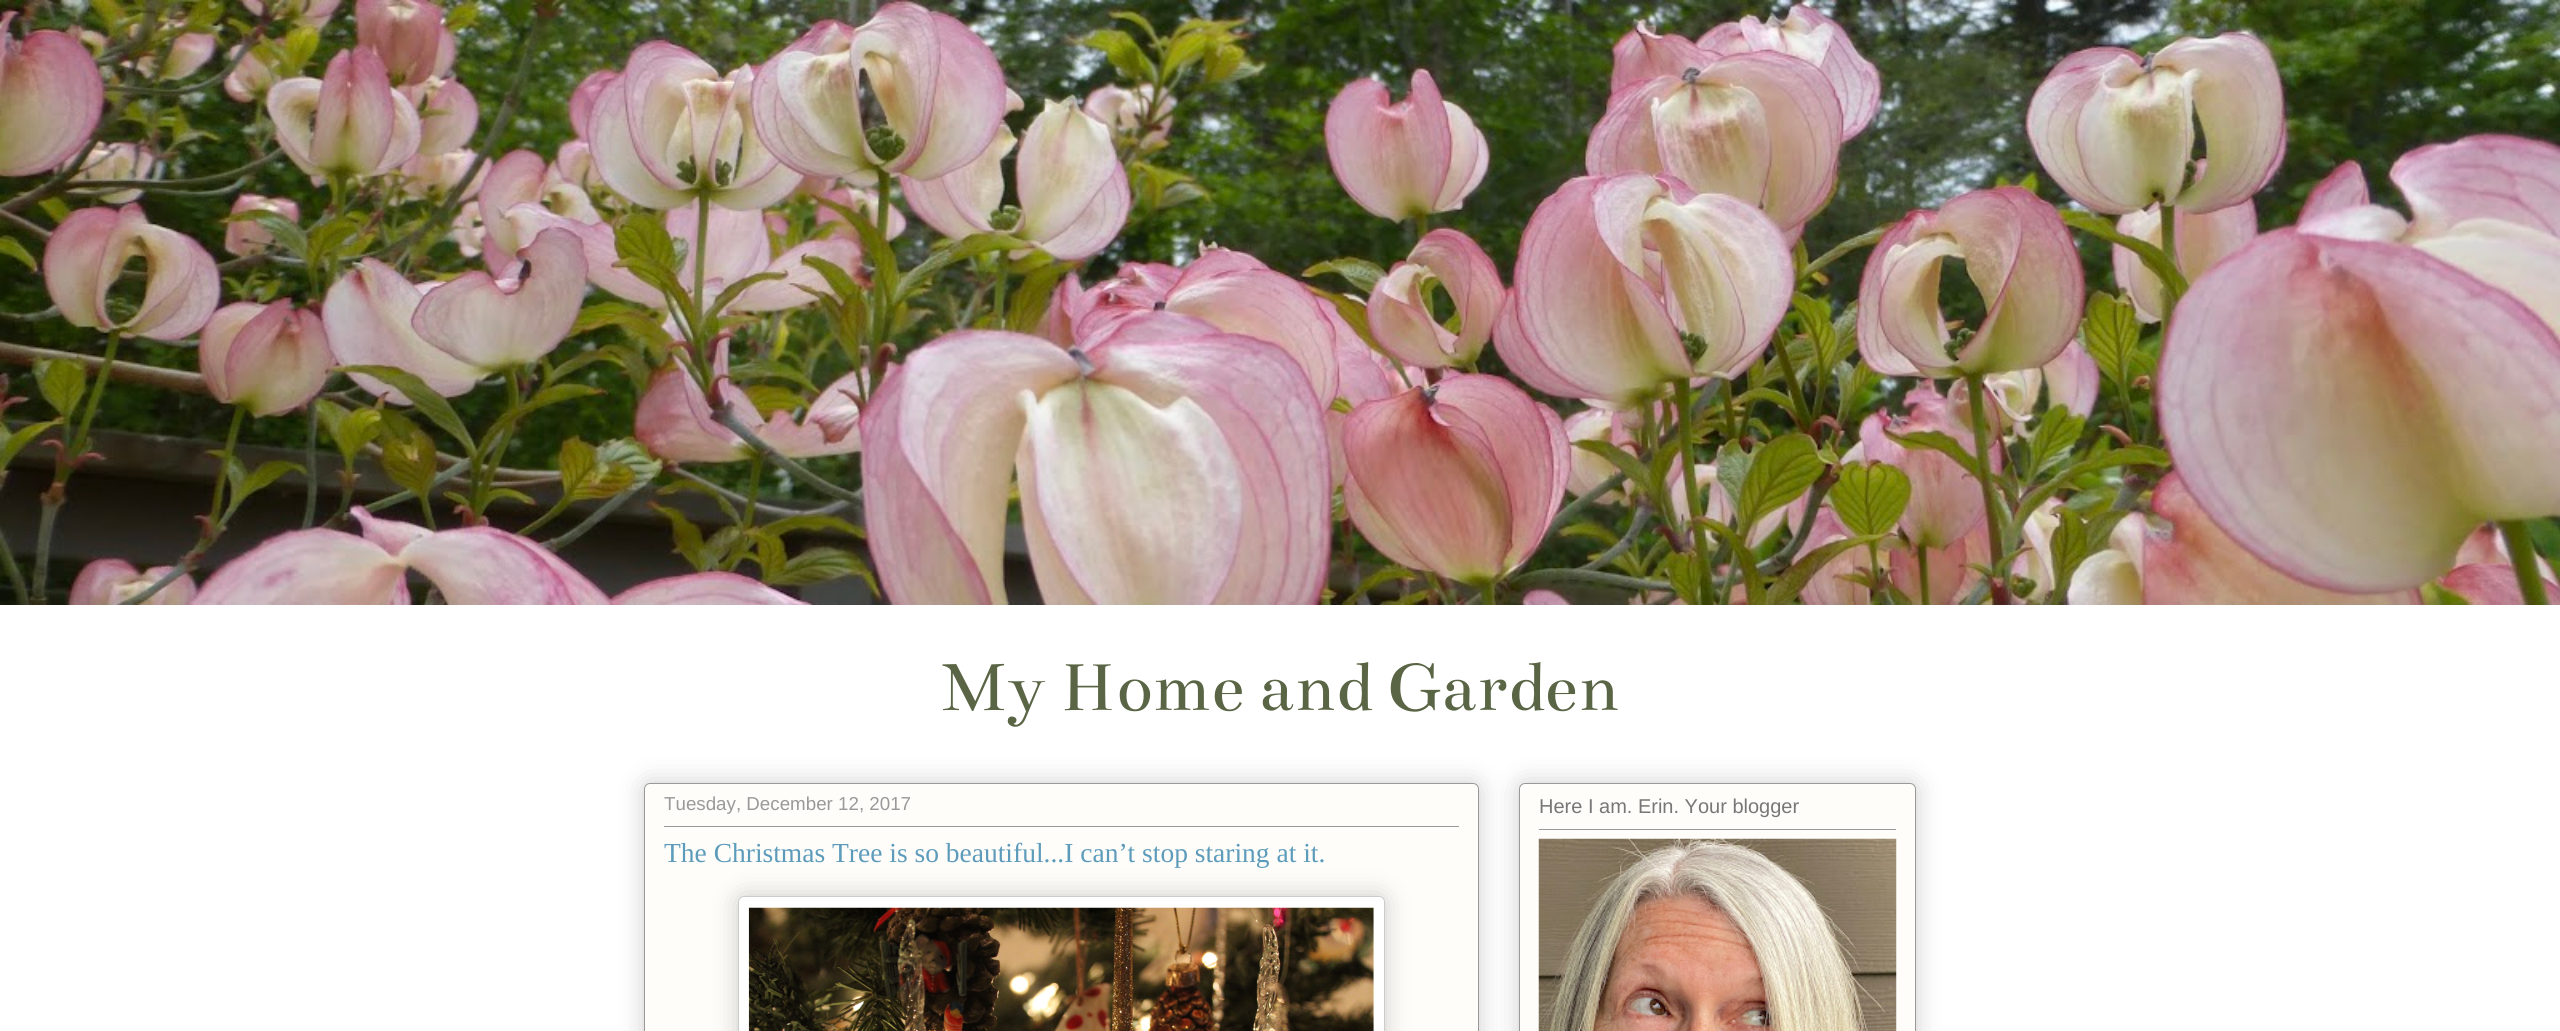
import math
import cairo


def round_path(ctx, x, y, w, h, r):
	ctx.new_sub_path()
	for i, (u, v) in enumerate([(x + w - r, y + h - r), (x + r, y + h - r), (x + r, y + r), (x + w - r, y + r)]):
		ctx.arc(u, v, r, i * math.pi / 2, (i + 1) * math.pi / 2)
	ctx.close_path()

def blur_box(ctx, x, y, w, h, r, blur, alpha):
	ctx.push_group_with_content(cairo.CONTENT_ALPHA)
	ctx.set_operator(cairo.OPERATOR_SOURCE)
	for i in range(15, -16, -2):
		e = blur * i / 6
		if min(w, h) + 2 * e > 0:
			ctx.set_source_rgba(0, 0, 0, alpha * math.erfc((i - 1) / 8.5) / 2)
			round_path(ctx, x - e, y - e, w + 2 * e, h + 2 * e, max(0, min(r + e + blur * .6, min(w, h) / 2 + e)))
			ctx.fill()
	ctx.mask(ctx.pop_group())

def paste(ctx, path, x, y, w, h):
	ctx.save()
	ctx.set_source_surface(cairo.ImageSurface.create_from_png(path), x, y)
	ctx.rectangle(x, y, w, h)
	ctx.fill()
	ctx.restore()

def draw(ctx):
	ctx.set_source_rgb(1, 1, 1)
	ctx.paint()
	paste(ctx, 'media/1.png', 0, 0, 2560, 605)
	ctx.select_font_face('Bentham')
	ctx.set_font_size(75)
	ctx.set_source_rgb(0.349, 0.396, 0.267)
	ctx.move_to(941, 710)
	ctx.show_text('My Home and Garden')
	ctx.set_source_rgb(0, 0, 0)
	blur_box(ctx, 644, 783, 835, 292, 6, 12.5, 0.2)
	ctx.set_source_rgb(0.996, 0.992, 0.98)
	round_path(ctx, 644.5, 783.5, 834, 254, 5.5)
	ctx.fill_preserve()
	ctx.set_source_rgb(0.6, 0.6, 0.6)
	ctx.set_line_width(1)
	ctx.stroke()
	ctx.select_font_face('Liberation Sans')
	ctx.set_font_size(18.75)
	ctx.move_to(664, 810)
	ctx.show_text('Tuesday, December 12, 2017')
	ctx.rectangle(664, 826, 795, 1)
	ctx.fill()
	ctx.select_font_face('Liberation Serif')
	ctx.set_font_size(27.5)
	ctx.set_source_rgb(0.365, 0.608, 0.733)
	ctx.move_to(664, 862)
	ctx.show_text('The Christmas Tree is so beautiful...I can’t stop staring at it.')
	ctx.set_source_rgb(0, 0, 0)
	blur_box(ctx, 738, 896, 647, 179, 6, 12.5, 0.2)
	ctx.set_source_rgb(1, 1, 1)
	round_path(ctx, 738.5, 896.5, 646, 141, 5.5)
	ctx.fill_preserve()
	ctx.set_source_rgb(0.8, 0.8, 0.8)
	ctx.stroke()
	paste(ctx, 'media/2.png', 748, 907, 626, 124)
	ctx.set_source_rgb(0, 0, 0)
	blur_box(ctx, 1519, 783, 397, 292, 6, 12.5, 0.2)
	ctx.set_source_rgb(0.996, 0.992, 0.98)
	round_path(ctx, 1519.5, 783.5, 396, 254, 5.5)
	ctx.fill_preserve()
	ctx.set_source_rgb(0.6, 0.6, 0.6)
	ctx.stroke()
	ctx.select_font_face('Liberation Sans')
	ctx.set_font_size(20)
	ctx.set_source_rgb(0.467, 0.467, 0.467)
	ctx.move_to(1539, 813)
	ctx.show_text('Here I am. Erin. Your blogger')
	ctx.set_source_rgb(0.6, 0.6, 0.6)
	ctx.rectangle(1539, 829, 357, 1)
	ctx.fill()
	paste(ctx, 'media/3.png', 1538, 838, 359, 193)


surface = cairo.ImageSurface(cairo.FORMAT_RGB24, 2560, 1031)
ctx = cairo.Context(surface)
options = cairo.FontOptions()
options.set_hint_metrics(cairo.HINT_METRICS_OFF)
options.set_hint_style(cairo.HINT_STYLE_NONE)
ctx.set_font_options(options)
ctx.set_miter_limit(4)
draw(ctx)
surface.write_to_png('image.png')
